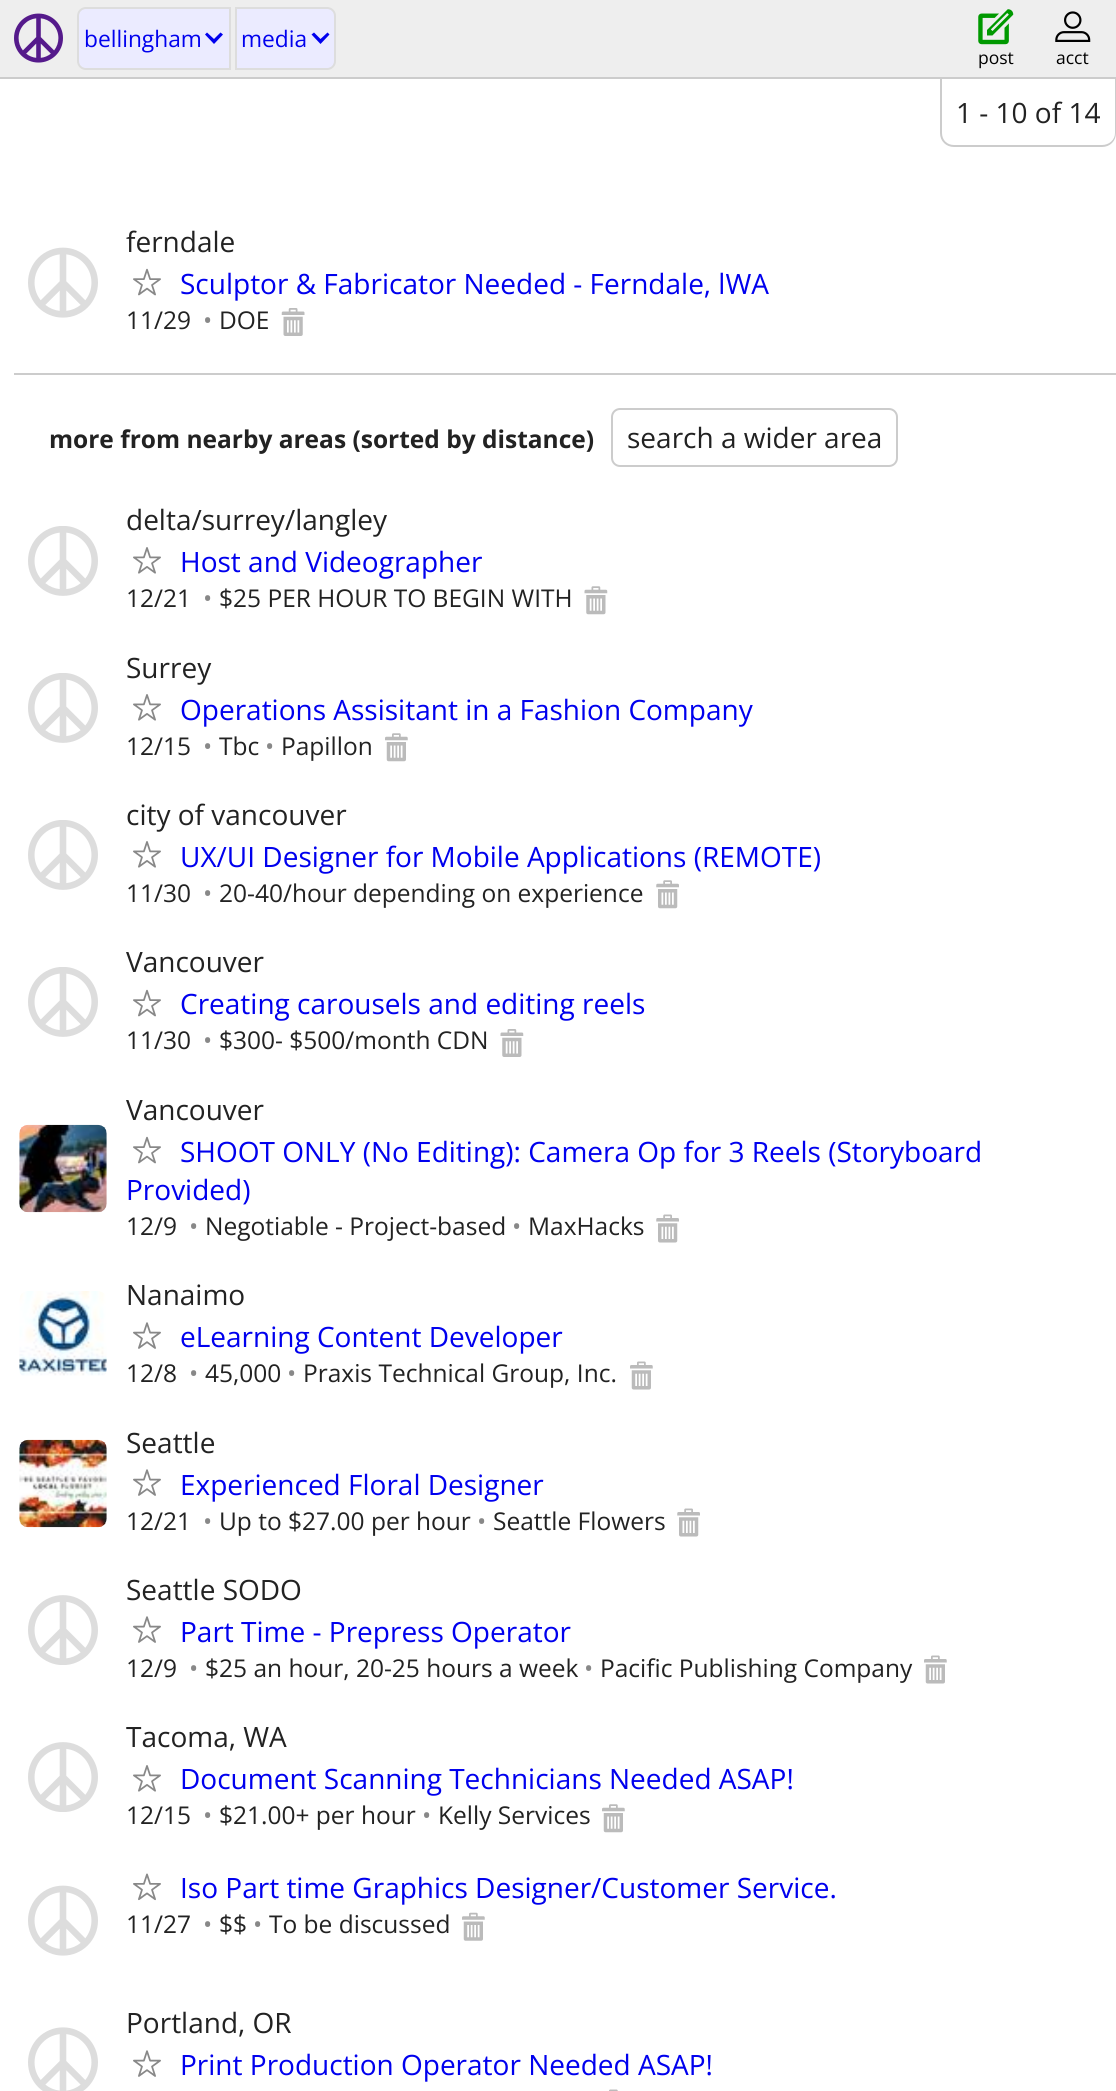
import math
import cairo


def round_path(ctx, x, y, w, h, r):
	ctx.new_sub_path()
	for i, (u, v) in enumerate([(x + w - r, y + h - r), (x + r, y + h - r), (x + r, y + r), (x + w - r, y + r)]):
		ctx.arc(u, v, r, i * math.pi / 2, (i + 1) * math.pi / 2)
	ctx.close_path()

def paste(ctx, path, x, y, w, h):
	ctx.save()
	ctx.set_source_surface(cairo.ImageSurface.create_from_png(path), x, y)
	ctx.rectangle(x, y, w, h)
	ctx.fill()
	ctx.restore()

def draw(ctx):
	ctx.set_source_rgb(1, 1, 1)
	ctx.paint()
	ctx.set_source_rgb(0.933, 0.933, 0.933)
	ctx.rectangle(0, 0, 1116, 77)
	ctx.fill()
	ctx.set_source_rgb(0.8, 0.8, 0.8)
	ctx.rectangle(0, 77, 1116, 2)
	ctx.fill()
	paste(ctx, 'media/1.png', 14, 13, 49, 50)
	ctx.set_source_rgb(0.918, 0.918, 1)
	ctx.new_path()
	ctx.move_to(86, 8)
	ctx.line_to(230, 8)
	ctx.line_to(230, 69)
	ctx.line_to(86, 69)
	ctx.curve_to(81.5, 69, 78, 65.5, 78, 61)
	ctx.line_to(78, 16)
	ctx.curve_to(78, 11.5, 81.5, 8, 86, 8)
	ctx.close_path()
	ctx.fill_preserve()
	ctx.set_source_rgb(0.867, 0.867, 0.867)
	ctx.stroke()
	ctx.select_font_face('Open Sans')
	ctx.set_font_size(22.75)
	ctx.set_source_rgb(0, 0, 0.933)
	ctx.move_to(84, 47)
	ctx.show_text('bellingham')
	ctx.new_path()
	ctx.move_to(223, 34.5)
	ctx.line_to(220.5, 32.5)
	ctx.line_to(214, 39)
	ctx.line_to(207, 32.5)
	ctx.line_to(205, 34.5)
	ctx.line_to(214, 44)
	ctx.close_path()
	ctx.fill()
	ctx.set_source_rgb(0.918, 0.918, 1)
	ctx.new_path()
	ctx.move_to(236, 8)
	ctx.line_to(327, 8)
	ctx.curve_to(331.5, 8, 335, 11.5, 335, 16)
	ctx.line_to(335, 61)
	ctx.curve_to(335, 65.5, 331.5, 69, 327, 69)
	ctx.line_to(236, 69)
	ctx.close_path()
	ctx.fill_preserve()
	ctx.set_source_rgb(0.867, 0.867, 0.867)
	ctx.stroke()
	ctx.set_source_rgb(0, 0, 0.933)
	ctx.move_to(241, 47)
	ctx.show_text('media')
	ctx.new_path()
	ctx.move_to(329.5, 34.5)
	ctx.line_to(327.5, 32.5)
	ctx.line_to(320.5, 39)
	ctx.line_to(314, 32.5)
	ctx.line_to(311.5, 34.5)
	ctx.line_to(320.5, 44)
	ctx.close_path()
	ctx.fill()
	paste(ctx, 'media/2.png', 978, 9, 36, 36)
	ctx.set_font_size(17.5)
	ctx.set_source_rgb(0, 0, 0)
	ctx.move_to(978, 64)
	ctx.show_text('post')
	paste(ctx, 'media/3.png', 1055, 11, 36, 31)
	ctx.move_to(1056, 64)
	ctx.show_text('acct')
	ctx.set_source_rgb(0.8, 0.8, 0.8)
	ctx.set_fill_rule(cairo.FILL_RULE_EVEN_ODD)
	ctx.new_path()
	ctx.move_to(940, 79)
	ctx.line_to(1116, 79)
	ctx.line_to(1116, 133)
	ctx.curve_to(1116, 141, 1110, 147, 1102, 147)
	ctx.line_to(954, 147)
	ctx.curve_to(946, 147, 940, 141, 940, 133)
	ctx.close_path()
	ctx.move_to(942, 79)
	ctx.line_to(1115, 79)
	ctx.line_to(1115, 133)
	ctx.curve_to(1115, 140, 1109, 145, 1102, 145)
	ctx.line_to(954, 145)
	ctx.curve_to(947, 145, 942, 140, 942, 133)
	ctx.close_path()
	ctx.fill()
	ctx.set_font_size(28)
	ctx.set_source_rgb(0.133, 0.133, 0.133)
	ctx.move_to(956, 123)
	ctx.show_text('1 - 10 of 14')
	paste(ctx, 'media/4.png', 28, 247, 70, 71)
	ctx.move_to(126, 252)
	ctx.show_text('ferndale')
	paste(ctx, 'media/5.png', 133, 268, 28, 28)
	ctx.set_source_rgb(0, 0, 0.933)
	ctx.move_to(180, 294)
	ctx.show_text('Sculptor & Fabricator Needed - Ferndale, lWA')
	ctx.set_font_size(24.5)
	ctx.set_source_rgb(0.133, 0.133, 0.133)
	ctx.move_to(126, 329)
	ctx.show_text('11/29')
	ctx.set_source_rgb(0.533, 0.533, 0.533)
	ctx.move_to(203, 329)
	ctx.show_text('•')
	ctx.set_source_rgb(0.133, 0.133, 0.133)
	ctx.move_to(219, 329)
	ctx.show_text('DOE')
	paste(ctx, 'media/6.png', 281, 308, 24, 28)
	ctx.set_source_rgb(0.8, 0.8, 0.8)
	ctx.rectangle(14, 373, 1102, 2)
	ctx.fill()
	ctx.select_font_face('Open Sans', cairo.FONT_SLANT_NORMAL, cairo.FONT_WEIGHT_BOLD)
	ctx.set_source_rgb(0.133, 0.133, 0.133)
	ctx.move_to(49, 448)
	ctx.show_text('more from nearby areas (sorted by distance)')
	round_path(ctx, 612, 409, 285, 57, 8)
	ctx.set_source_rgb(0.8, 0.8, 0.8)
	ctx.stroke()
	ctx.select_font_face('Open Sans')
	ctx.set_font_size(28)
	ctx.set_source_rgb(0.133, 0.133, 0.133)
	ctx.move_to(627, 448)
	ctx.show_text('search a wider area')
	paste(ctx, 'media/7.png', 28, 526, 70, 70)
	ctx.move_to(126, 530)
	ctx.show_text('delta/surrey/langley')
	paste(ctx, 'media/8.png', 133, 547, 28, 27)
	ctx.set_source_rgb(0, 0, 0.933)
	ctx.move_to(180, 572)
	ctx.show_text('Host and Videographer')
	ctx.set_font_size(24.5)
	ctx.set_source_rgb(0.133, 0.133, 0.133)
	ctx.move_to(126, 607)
	ctx.show_text('12/21')
	ctx.set_source_rgb(0.533, 0.533, 0.533)
	ctx.move_to(203, 607)
	ctx.show_text('•')
	ctx.set_source_rgb(0.133, 0.133, 0.133)
	ctx.move_to(219, 607)
	ctx.show_text('$25 PER HOUR TO BEGIN WITH')
	paste(ctx, 'media/9.png', 584, 586, 24, 29)
	paste(ctx, 'media/7.png', 28, 673, 70, 70)
	ctx.set_font_size(28)
	ctx.move_to(126, 678)
	ctx.show_text('Surrey')
	paste(ctx, 'media/8.png', 133, 694, 28, 27)
	ctx.set_source_rgb(0, 0, 0.933)
	ctx.move_to(180, 720)
	ctx.show_text('Operations Assisitant in a Fashion Company')
	ctx.set_font_size(24.5)
	ctx.set_source_rgb(0.133, 0.133, 0.133)
	ctx.move_to(126, 755)
	ctx.show_text('12/15')
	ctx.set_source_rgb(0.533, 0.533, 0.533)
	ctx.move_to(203, 755)
	ctx.show_text('•')
	ctx.set_source_rgb(0.133, 0.133, 0.133)
	ctx.move_to(219, 755)
	ctx.show_text('Tbc')
	ctx.set_source_rgb(0.533, 0.533, 0.533)
	ctx.move_to(265, 755)
	ctx.show_text('•')
	ctx.set_source_rgb(0.133, 0.133, 0.133)
	ctx.move_to(281, 755)
	ctx.show_text('Papillon')
	paste(ctx, 'media/10.png', 385, 733, 23, 29)
	paste(ctx, 'media/7.png', 28, 820, 70, 70)
	ctx.set_font_size(28)
	ctx.move_to(126, 825)
	ctx.show_text('city of vancouver')
	paste(ctx, 'media/8.png', 133, 841, 28, 27)
	ctx.set_source_rgb(0, 0, 0.933)
	ctx.move_to(180, 867)
	ctx.show_text('UX/UI Designer for Mobile Applications (REMOTE)')
	ctx.set_font_size(24.5)
	ctx.set_source_rgb(0.133, 0.133, 0.133)
	ctx.move_to(126, 902)
	ctx.show_text('11/30')
	ctx.set_source_rgb(0.533, 0.533, 0.533)
	ctx.move_to(203, 902)
	ctx.show_text('•')
	ctx.set_source_rgb(0.133, 0.133, 0.133)
	ctx.move_to(219, 902)
	ctx.show_text('20-40/hour depending on experience')
	paste(ctx, 'media/11.png', 656, 880, 23, 29)
	paste(ctx, 'media/7.png', 28, 967, 70, 70)
	ctx.set_font_size(28)
	ctx.move_to(126, 972)
	ctx.show_text('Vancouver')
	paste(ctx, 'media/5.png', 133, 989, 28, 28)
	ctx.set_source_rgb(0, 0, 0.933)
	ctx.move_to(180, 1014)
	ctx.show_text('Creating carousels and editing reels')
	ctx.set_font_size(24.5)
	ctx.set_source_rgb(0.133, 0.133, 0.133)
	ctx.move_to(126, 1049)
	ctx.show_text('11/30')
	ctx.set_source_rgb(0.533, 0.533, 0.533)
	ctx.move_to(203, 1049)
	ctx.show_text('•')
	ctx.set_source_rgb(0.133, 0.133, 0.133)
	ctx.move_to(219, 1049)
	ctx.show_text('$300- $500/month CDN')
	paste(ctx, 'media/12.png', 500, 1029, 24, 28)
	paste(ctx, 'media/13.png', 19, 1124, 88, 89)
	ctx.set_font_size(28)
	ctx.move_to(126, 1120)
	ctx.show_text('Vancouver')
	paste(ctx, 'media/5.png', 133, 1136, 28, 28)
	ctx.set_source_rgb(0, 0, 0.933)
	ctx.move_to(180, 1162)
	ctx.show_text('SHOOT ONLY (No Editing): Camera Op for 3 Reels (Storyboard')
	ctx.move_to(126, 1200)
	ctx.show_text('Provided)')
	ctx.set_font_size(24.5)
	ctx.set_source_rgb(0.133, 0.133, 0.133)
	ctx.move_to(126, 1235)
	ctx.show_text('12/9')
	ctx.set_source_rgb(0.533, 0.533, 0.533)
	ctx.move_to(189, 1235)
	ctx.show_text('•')
	ctx.set_source_rgb(0.133, 0.133, 0.133)
	ctx.move_to(205, 1235)
	ctx.show_text('Negotiable - Project-based')
	ctx.set_source_rgb(0.533, 0.533, 0.533)
	ctx.move_to(512, 1235)
	ctx.show_text('•')
	ctx.set_source_rgb(0.133, 0.133, 0.133)
	ctx.move_to(528, 1235)
	ctx.show_text('MaxHacks')
	paste(ctx, 'media/14.png', 656, 1214, 23, 29)
	paste(ctx, 'media/15.png', 19, 1291, 88, 85)
	ctx.set_font_size(28)
	ctx.move_to(126, 1305)
	ctx.show_text('Nanaimo')
	paste(ctx, 'media/16.png', 133, 1322, 28, 27)
	ctx.set_source_rgb(0, 0, 0.933)
	ctx.move_to(180, 1347)
	ctx.show_text('eLearning Content Developer')
	ctx.set_font_size(24.5)
	ctx.set_source_rgb(0.133, 0.133, 0.133)
	ctx.move_to(126, 1382)
	ctx.show_text('12/8')
	ctx.set_source_rgb(0.533, 0.533, 0.533)
	ctx.move_to(189, 1382)
	ctx.show_text('•')
	ctx.set_source_rgb(0.133, 0.133, 0.133)
	ctx.move_to(205, 1382)
	ctx.show_text('45,000')
	ctx.set_source_rgb(0.533, 0.533, 0.533)
	ctx.move_to(287, 1382)
	ctx.show_text('•')
	ctx.set_source_rgb(0.133, 0.133, 0.133)
	ctx.move_to(303, 1382)
	ctx.show_text('Praxis Technical Group, Inc.')
	paste(ctx, 'media/17.png', 630, 1361, 23, 29)
	paste(ctx, 'media/18.png', 19, 1439, 88, 89)
	ctx.set_font_size(28)
	ctx.move_to(126, 1453)
	ctx.show_text('Seattle')
	paste(ctx, 'media/16.png', 133, 1469, 28, 27)
	ctx.set_source_rgb(0, 0, 0.933)
	ctx.move_to(180, 1495)
	ctx.show_text('Experienced Floral Designer')
	ctx.set_font_size(24.5)
	ctx.set_source_rgb(0.133, 0.133, 0.133)
	ctx.move_to(126, 1530)
	ctx.show_text('12/21')
	ctx.set_source_rgb(0.533, 0.533, 0.533)
	ctx.move_to(203, 1530)
	ctx.show_text('•')
	ctx.set_source_rgb(0.133, 0.133, 0.133)
	ctx.move_to(219, 1530)
	ctx.show_text('Up to $27.00 per hour')
	ctx.set_source_rgb(0.533, 0.533, 0.533)
	ctx.move_to(477, 1530)
	ctx.show_text('•')
	ctx.set_source_rgb(0.133, 0.133, 0.133)
	ctx.move_to(493, 1530)
	ctx.show_text('Seattle Flowers')
	paste(ctx, 'media/14.png', 677, 1508, 23, 29)
	paste(ctx, 'media/19.png', 28, 1595, 70, 70)
	ctx.set_font_size(28)
	ctx.move_to(126, 1600)
	ctx.show_text('Seattle SODO')
	paste(ctx, 'media/16.png', 133, 1616, 28, 27)
	ctx.set_source_rgb(0, 0, 0.933)
	ctx.move_to(180, 1642)
	ctx.show_text('Part Time - Prepress Operator')
	ctx.set_font_size(24.5)
	ctx.set_source_rgb(0.133, 0.133, 0.133)
	ctx.move_to(126, 1677)
	ctx.show_text('12/9')
	ctx.set_source_rgb(0.533, 0.533, 0.533)
	ctx.move_to(189, 1677)
	ctx.show_text('•')
	ctx.set_source_rgb(0.133, 0.133, 0.133)
	ctx.move_to(205, 1677)
	ctx.show_text('$25 an hour, 20-25 hours a week')
	ctx.set_source_rgb(0.533, 0.533, 0.533)
	ctx.move_to(584, 1677)
	ctx.show_text('•')
	ctx.set_source_rgb(0.133, 0.133, 0.133)
	ctx.move_to(600, 1677)
	ctx.show_text('Pacific Publishing Company')
	paste(ctx, 'media/17.png', 924, 1655, 23, 29)
	paste(ctx, 'media/19.png', 28, 1742, 70, 70)
	ctx.set_font_size(28)
	ctx.move_to(126, 1747)
	ctx.show_text('Tacoma, WA')
	paste(ctx, 'media/8.png', 133, 1765, 28, 27)
	ctx.set_source_rgb(0, 0, 0.933)
	ctx.move_to(180, 1789)
	ctx.show_text('Document Scanning Technicians Needed ASAP!')
	ctx.set_font_size(24.5)
	ctx.set_source_rgb(0.133, 0.133, 0.133)
	ctx.move_to(126, 1824)
	ctx.show_text('12/15')
	ctx.set_source_rgb(0.533, 0.533, 0.533)
	ctx.move_to(203, 1824)
	ctx.show_text('•')
	ctx.set_source_rgb(0.133, 0.133, 0.133)
	ctx.move_to(219, 1824)
	ctx.show_text('$21.00+ per hour')
	ctx.set_source_rgb(0.533, 0.533, 0.533)
	ctx.move_to(422, 1824)
	ctx.show_text('•')
	ctx.set_source_rgb(0.133, 0.133, 0.133)
	ctx.move_to(438, 1824)
	ctx.show_text('Kelly Services')
	paste(ctx, 'media/10.png', 602, 1804, 23, 29)
	paste(ctx, 'media/4.png', 28, 1885, 70, 71)
	paste(ctx, 'media/20.png', 133, 1873, 28, 28)
	ctx.set_font_size(28)
	ctx.set_source_rgb(0, 0, 0.933)
	ctx.move_to(180, 1898)
	ctx.show_text('Iso Part time Graphics Designer/Customer Service.')
	ctx.set_font_size(24.5)
	ctx.set_source_rgb(0.133, 0.133, 0.133)
	ctx.move_to(126, 1933)
	ctx.show_text('11/27')
	ctx.set_source_rgb(0.533, 0.533, 0.533)
	ctx.move_to(203, 1933)
	ctx.show_text('•')
	ctx.set_source_rgb(0.133, 0.133, 0.133)
	ctx.move_to(219, 1933)
	ctx.show_text('$$')
	ctx.set_source_rgb(0.533, 0.533, 0.533)
	ctx.move_to(253, 1933)
	ctx.show_text('•')
	ctx.set_source_rgb(0.133, 0.133, 0.133)
	ctx.move_to(269, 1933)
	ctx.show_text('To be discussed')
	paste(ctx, 'media/21.png', 462, 1912, 23, 29)
	paste(ctx, 'media/22.png', 28, 2027, 70, 64)
	ctx.set_font_size(28)
	ctx.move_to(126, 2033)
	ctx.show_text('Portland, OR')
	paste(ctx, 'media/16.png', 133, 2050, 28, 27)
	ctx.set_source_rgb(0, 0, 0.933)
	ctx.move_to(180, 2075)
	ctx.show_text('Print Production Operator Needed ASAP!')
	paste(ctx, 'media/23.png', 609, 2089, 9, 2)


surface = cairo.ImageSurface(cairo.FORMAT_RGB24, 1116, 2091)
ctx = cairo.Context(surface)
options = cairo.FontOptions()
options.set_hint_metrics(cairo.HINT_METRICS_OFF)
options.set_hint_style(cairo.HINT_STYLE_NONE)
ctx.set_font_options(options)
ctx.set_miter_limit(4)
draw(ctx)
surface.write_to_png('image.png')
